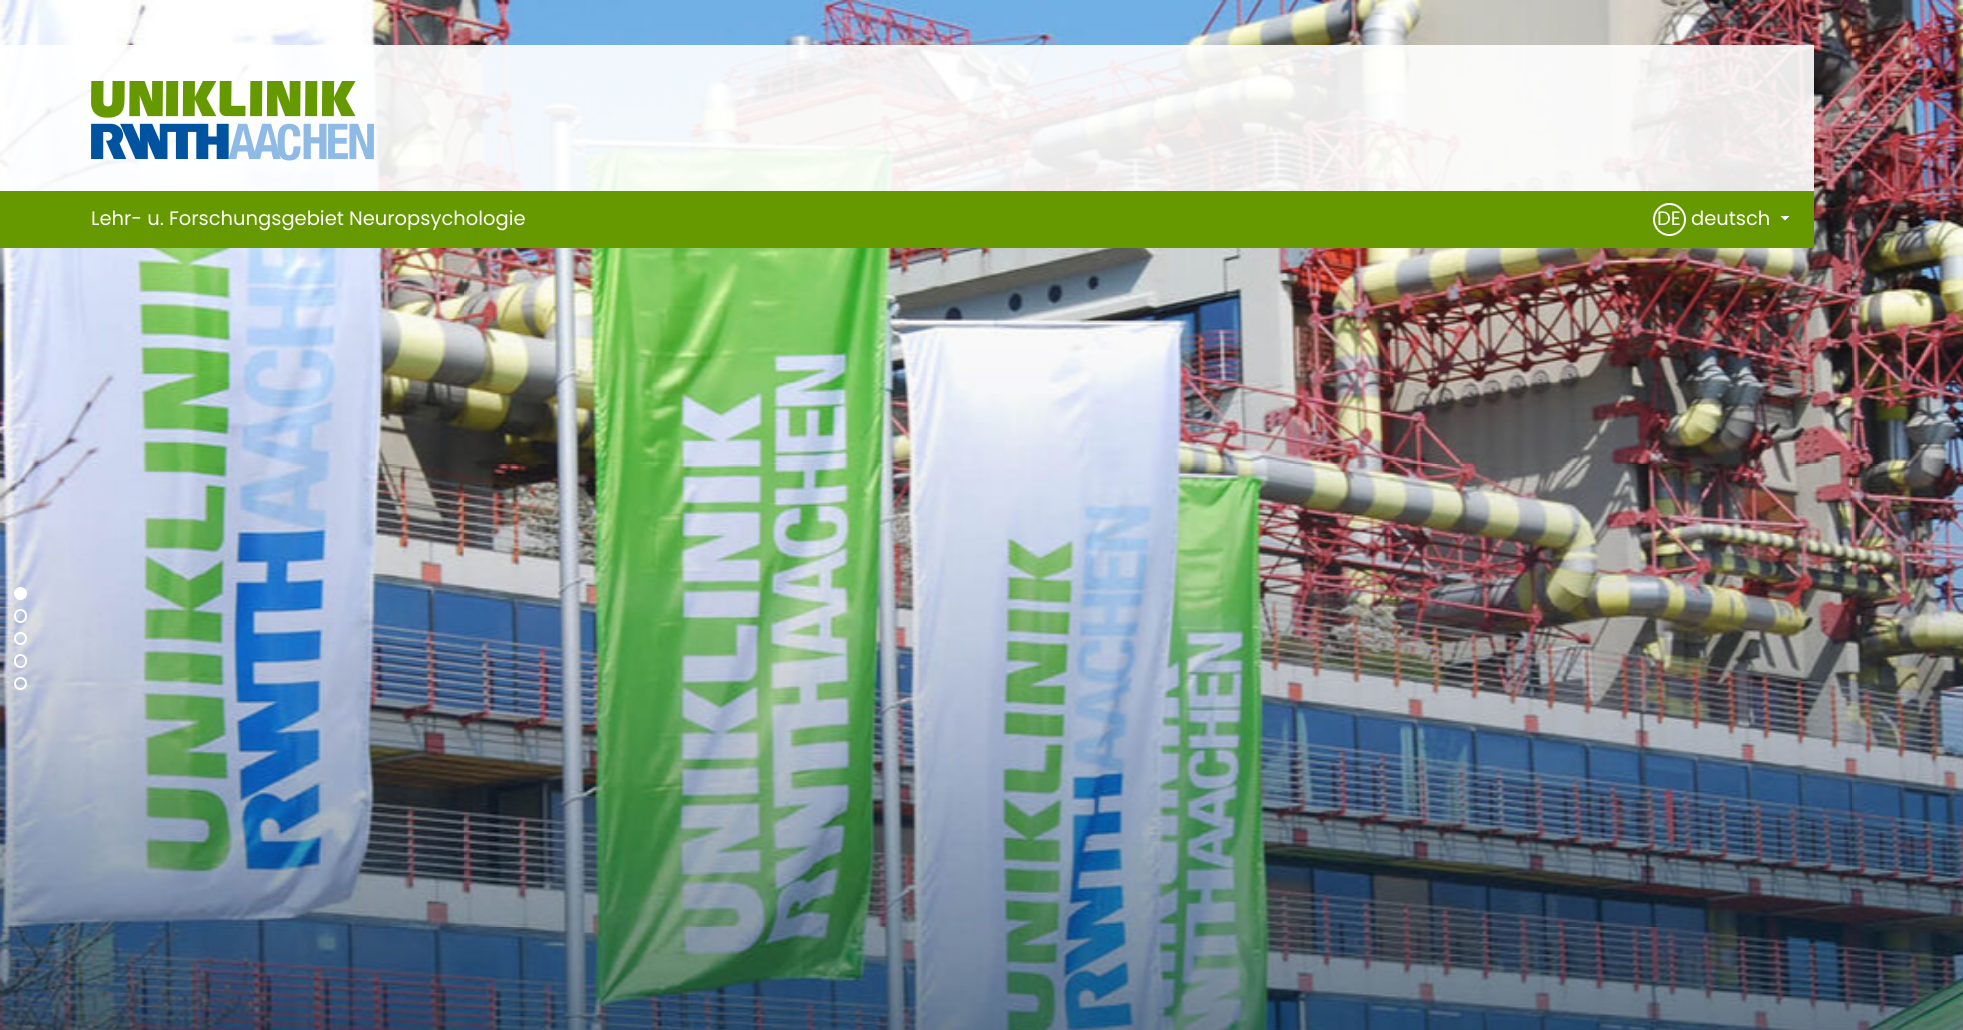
import math
import cairo


def round_path(ctx, x, y, w, h, r):
	ctx.new_sub_path()
	for i, (u, v) in enumerate([(x + w - r, y + h - r), (x + r, y + h - r), (x + r, y + r), (x + w - r, y + r)]):
		ctx.arc(u, v, r, i * math.pi / 2, (i + 1) * math.pi / 2)
	ctx.close_path()

def paste(ctx, path, x, y, w, h):
	ctx.save()
	ctx.set_source_surface(cairo.ImageSurface.create_from_png(path), x, y)
	ctx.rectangle(x, y, w, h)
	ctx.fill()
	ctx.restore()

def draw(ctx):
	ctx.set_source_rgb(1, 1, 1)
	ctx.paint()
	paste(ctx, 'media/1.png', 0, 0, 1963, 1030)
	ctx.set_source_rgb(1, 1, 1)
	ctx.arc(20.5, 593.5, 5.5, 0, 2 * math.pi)
	ctx.fill_preserve()
	ctx.stroke()
	round_path(ctx, 15, 610, 11, 12, 5.5)
	ctx.stroke()
	ctx.arc(20.5, 638.5, 5.5, 0, 2 * math.pi)
	ctx.stroke()
	round_path(ctx, 15, 655, 11, 12, 5.5)
	ctx.stroke()
	ctx.arc(20.5, 683.5, 5.5, 0, 2 * math.pi)
	ctx.stroke()
	ctx.set_source_rgba(1, 1, 1, 0.9)
	ctx.rectangle(0, 45, 1814, 146)
	ctx.fill()
	paste(ctx, 'media/2.png', 91, 81, 283, 80)
	ctx.set_source_rgb(0.4, 0.6, 0)
	ctx.rectangle(0, 191, 1814, 57)
	ctx.fill()
	ctx.select_font_face('Poppins')
	ctx.set_font_size(19.5)
	ctx.set_source_rgb(1, 1, 1)
	ctx.move_to(91, 225)
	ctx.show_text('Lehr- u. Forschungsgebiet Neuropsychologie')
	ctx.new_path()
	ctx.arc(1669.5, 219.5, 15.5, 0, 2 * math.pi)
	ctx.stroke()
	ctx.move_to(1657, 225)
	ctx.show_text('DE')
	ctx.move_to(1691, 225)
	ctx.show_text('deutsch')
	ctx.new_path()
	ctx.move_to(1780.5, 216)
	ctx.line_to(1789.5, 216)
	ctx.line_to(1785, 220.5)
	ctx.close_path()
	ctx.fill()


surface = cairo.ImageSurface(cairo.FORMAT_RGB24, 1963, 1030)
ctx = cairo.Context(surface)
options = cairo.FontOptions()
options.set_hint_metrics(cairo.HINT_METRICS_OFF)
options.set_hint_style(cairo.HINT_STYLE_NONE)
ctx.set_font_options(options)
ctx.set_miter_limit(4)
draw(ctx)
surface.write_to_png('image.png')
